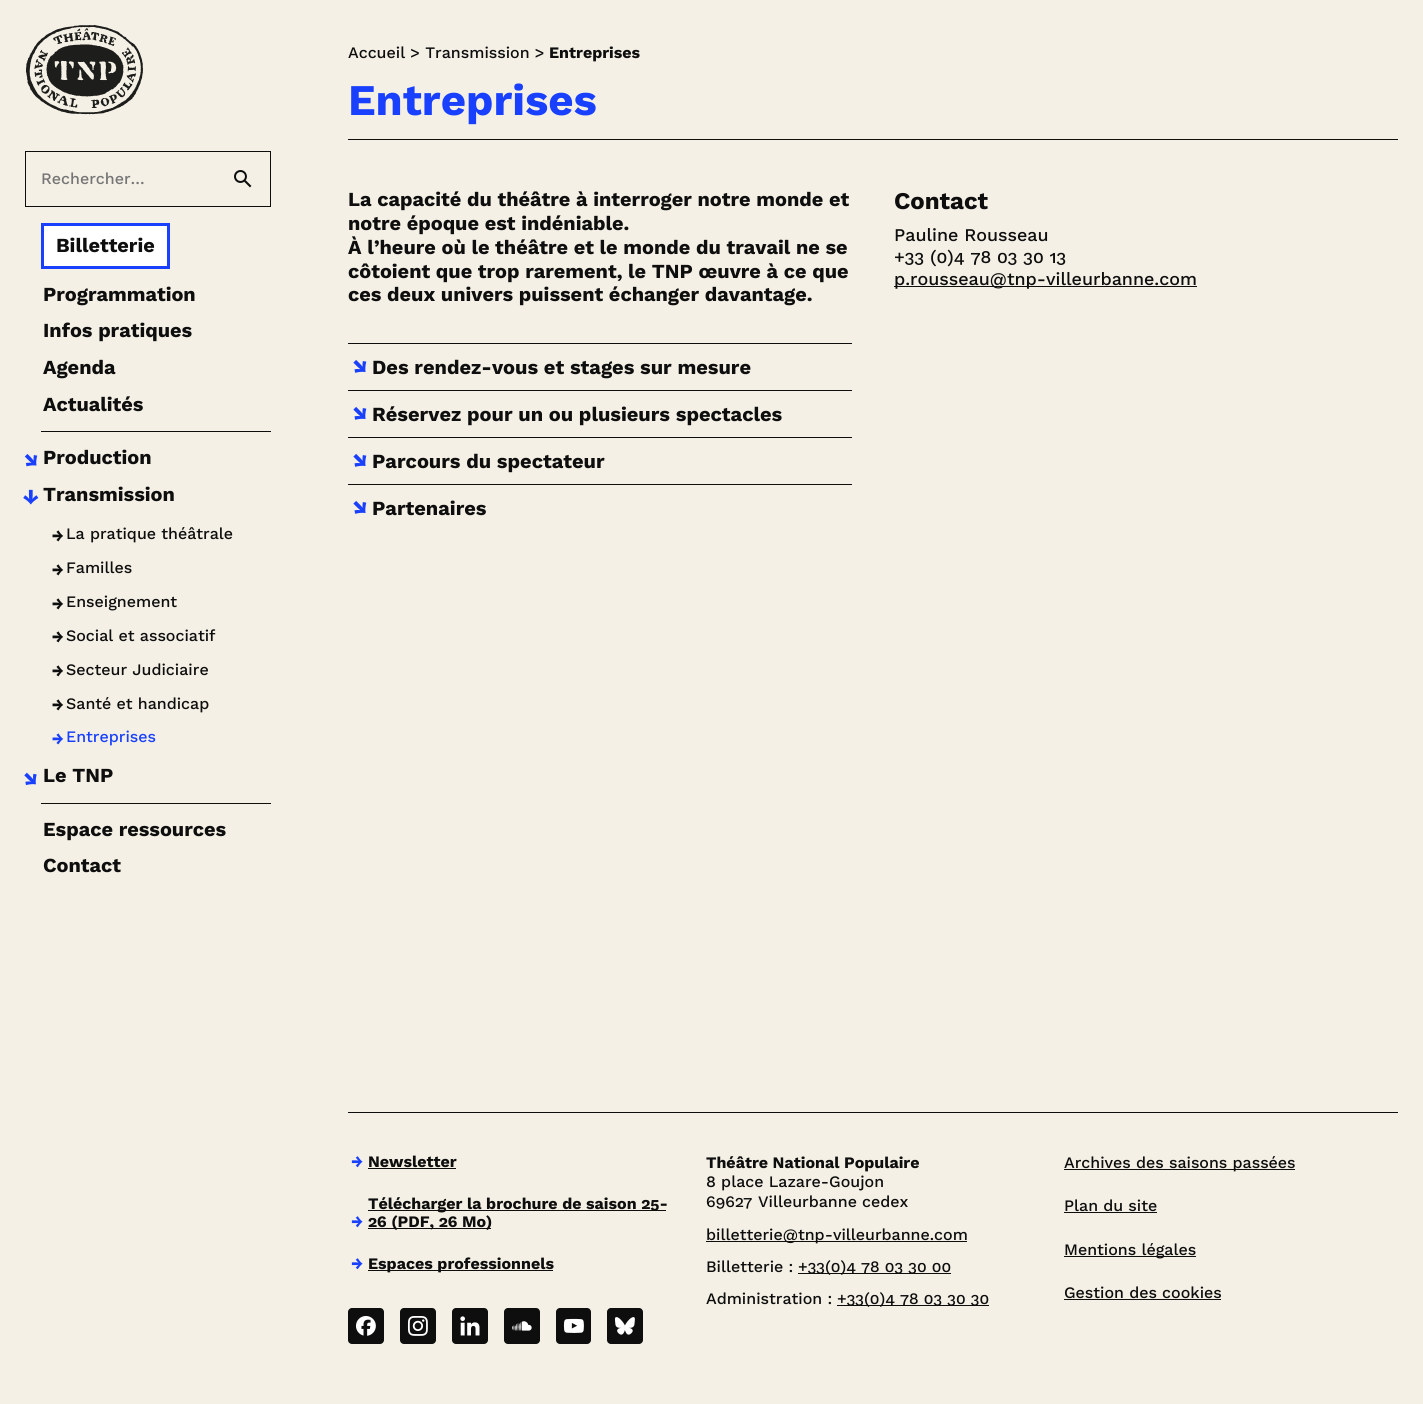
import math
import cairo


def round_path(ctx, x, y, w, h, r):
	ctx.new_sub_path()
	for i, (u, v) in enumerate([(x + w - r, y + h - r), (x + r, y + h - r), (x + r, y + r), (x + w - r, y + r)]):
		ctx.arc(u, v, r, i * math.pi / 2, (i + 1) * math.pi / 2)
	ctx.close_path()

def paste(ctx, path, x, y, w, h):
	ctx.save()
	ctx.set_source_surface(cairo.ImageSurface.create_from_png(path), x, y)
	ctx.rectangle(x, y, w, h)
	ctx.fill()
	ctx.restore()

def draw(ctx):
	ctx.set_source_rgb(0.957, 0.941, 0.898)
	ctx.paint()
	paste(ctx, 'media/1.png', 26, 25, 117, 90)
	ctx.rectangle(25.5, 151.5, 245, 55)
	ctx.set_source_rgb(0.055, 0.055, 0.055)
	ctx.set_line_width(1)
	ctx.stroke()
	ctx.select_font_face('Work Sans Medium')
	ctx.set_font_size(16)
	ctx.set_source_rgb(0.459, 0.459, 0.459)
	ctx.move_to(41, 184)
	ctx.show_text('Rechercher…')
	paste(ctx, 'media/2.png', 234, 170, 18, 18)
	ctx.set_source_rgb(1, 1, 1)
	ctx.rectangle(42.5, 224.5, 126, 43)
	ctx.fill_preserve()
	ctx.set_source_rgb(0.098, 0.251, 1)
	ctx.set_line_width(3)
	ctx.stroke()
	ctx.select_font_face('Work Sans', cairo.FONT_SLANT_NORMAL, cairo.FONT_WEIGHT_BOLD)
	ctx.set_font_size(19.9)
	ctx.set_source_rgb(0.055, 0.055, 0.055)
	for x, y, s in [
		(56, 252, 'Billetterie'),
		(43, 301, 'Programmation'),
		(43, 337, 'Infos pratiques'),
		(43, 374, 'Agenda'),
		(43, 411, 'Actualités'),
	]:
		ctx.move_to(x, y)
		ctx.show_text(s)
	ctx.rectangle(41, 431, 230, 1)
	ctx.fill()
	paste(ctx, 'media/3.png', 24, 454, 14, 13)
	ctx.move_to(43, 464)
	ctx.show_text('Production')
	paste(ctx, 'media/4.png', 23, 489, 16, 16)
	ctx.move_to(43, 501)
	ctx.show_text('Transmission')
	paste(ctx, 'media/5.png', 52, 530, 12, 12)
	ctx.select_font_face('Work Sans Medium')
	ctx.set_font_size(16)
	ctx.move_to(66, 539)
	ctx.show_text('La pratique théâtrale')
	paste(ctx, 'media/5.png', 52, 564, 12, 12)
	ctx.move_to(66, 573)
	ctx.show_text('Familles')
	paste(ctx, 'media/5.png', 52, 598, 12, 12)
	ctx.move_to(66, 607)
	ctx.show_text('Enseignement')
	paste(ctx, 'media/5.png', 52, 631, 12, 12)
	ctx.move_to(66, 641)
	ctx.show_text('Social et associatif')
	paste(ctx, 'media/5.png', 52, 665, 12, 12)
	ctx.move_to(66, 675)
	ctx.show_text('Secteur Judiciaire')
	paste(ctx, 'media/5.png', 52, 699, 12, 12)
	ctx.move_to(66, 709)
	ctx.show_text('Santé et handicap')
	paste(ctx, 'media/6.png', 52, 733, 12, 12)
	ctx.set_source_rgb(0.098, 0.251, 1)
	ctx.move_to(66, 742)
	ctx.show_text('Entreprises')
	paste(ctx, 'media/7.png', 24, 772, 13, 14)
	ctx.select_font_face('Work Sans', cairo.FONT_SLANT_NORMAL, cairo.FONT_WEIGHT_BOLD)
	ctx.set_font_size(19.9)
	ctx.set_source_rgb(0.055, 0.055, 0.055)
	ctx.move_to(43, 782)
	ctx.show_text('Le TNP')
	ctx.rectangle(41, 803, 230, 1)
	ctx.fill()
	ctx.move_to(43, 836)
	ctx.show_text('Espace ressources')
	ctx.move_to(43, 872)
	ctx.show_text('Contact')
	ctx.select_font_face('Work Sans Medium')
	ctx.set_font_size(16)
	ctx.move_to(348, 58)
	ctx.show_text('Accueil > Transmission >')
	ctx.select_font_face('Work Sans', cairo.FONT_SLANT_NORMAL, cairo.FONT_WEIGHT_BOLD)
	ctx.move_to(549, 58)
	ctx.show_text('Entreprises')
	ctx.rectangle(348, 139, 1050, 1)
	ctx.fill()
	ctx.set_font_size(43.75)
	ctx.set_source_rgb(0.098, 0.251, 1)
	ctx.move_to(348, 115)
	ctx.show_text('Entreprises')
	ctx.set_font_size(19.9)
	ctx.set_source_rgb(0.055, 0.055, 0.055)
	for x, y, s in [
		(348, 206, 'La capacité du théâtre à interroger notre monde et'),
		(348, 230, 'notre époque est indéniable.'),
		(348, 254, 'À l’heure où le théâtre et le monde du travail ne se'),
		(348, 278, 'côtoient que trop rarement, le TNP œuvre à ce que'),
		(348, 301, 'ces deux univers puissent échanger davantage.'),
	]:
		ctx.move_to(x, y)
		ctx.show_text(s)
	ctx.set_font_size(24)
	ctx.move_to(894, 209)
	ctx.show_text('Contact')
	ctx.select_font_face('Work Sans Medium')
	ctx.set_font_size(17.9)
	ctx.move_to(894, 241)
	ctx.show_text('Pauline Rousseau')
	ctx.select_font_face('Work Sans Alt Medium')
	ctx.move_to(894, 263)
	ctx.show_text('+33 (0)4 78 03 30 13')
	ctx.rectangle(894, 286, 303, 1)
	ctx.fill()
	ctx.select_font_face('Work Sans Medium')
	ctx.move_to(894, 285)
	ctx.show_text('p.rousseau@tnp-villeurbanne.com')
	ctx.rectangle(348, 343, 504, 1)
	ctx.fill()
	paste(ctx, 'media/8.png', 353, 360, 14, 13)
	ctx.select_font_face('Work Sans', cairo.FONT_SLANT_NORMAL, cairo.FONT_WEIGHT_BOLD)
	ctx.set_font_size(20)
	ctx.move_to(372, 374)
	ctx.show_text('Des rendez-vous et stages sur mesure')
	ctx.rectangle(348, 390, 504, 1)
	ctx.fill()
	paste(ctx, 'media/8.png', 353, 407, 14, 13)
	ctx.move_to(372, 421)
	ctx.show_text('Réservez pour un ou plusieurs spectacles')
	ctx.rectangle(348, 437, 504, 1)
	ctx.fill()
	paste(ctx, 'media/8.png', 353, 454, 14, 13)
	ctx.move_to(372, 468)
	ctx.show_text('Parcours du spectateur')
	ctx.rectangle(348, 484, 504, 1)
	ctx.fill()
	paste(ctx, 'media/8.png', 353, 501, 14, 13)
	ctx.move_to(372, 515)
	ctx.show_text('Partenaires')
	ctx.rectangle(348, 1112, 1050, 1)
	ctx.fill()
	ctx.set_font_size(16)
	ctx.set_source_rgb(0.098, 0.251, 1)
	ctx.move_to(351, 1167)
	ctx.show_text('→')
	ctx.set_source_rgb(0.055, 0.055, 0.055)
	ctx.move_to(368, 1167)
	ctx.show_text('Newsletter')
	ctx.rectangle(368, 1168, 88, 1)
	ctx.fill()
	ctx.set_source_rgb(0.098, 0.251, 1)
	ctx.move_to(351, 1227)
	ctx.show_text('→')
	ctx.set_source_rgb(0.055, 0.055, 0.055)
	ctx.rectangle(368, 1210, 298, 1)
	ctx.fill()
	ctx.select_font_face('Work Sans Alt', cairo.FONT_SLANT_NORMAL, cairo.FONT_WEIGHT_BOLD)
	ctx.move_to(368, 1209)
	ctx.show_text('Télécharger la brochure de saison 25-')
	ctx.rectangle(368, 1228, 123, 1)
	ctx.fill()
	ctx.move_to(368, 1227)
	ctx.show_text('26 (PDF, 26 Mo)')
	ctx.select_font_face('Work Sans', cairo.FONT_SLANT_NORMAL, cairo.FONT_WEIGHT_BOLD)
	ctx.set_source_rgb(0.098, 0.251, 1)
	ctx.move_to(351, 1269)
	ctx.show_text('→')
	ctx.set_source_rgb(0.055, 0.055, 0.055)
	ctx.rectangle(368, 1270, 185, 1)
	ctx.fill()
	ctx.move_to(368, 1269)
	ctx.show_text('Espaces professionnels')
	ctx.move_to(706, 1168)
	ctx.show_text('Théâtre National Populaire')
	ctx.select_font_face('Work Sans Medium')
	ctx.move_to(706, 1187)
	ctx.show_text('8 place Lazare-Goujon')
	ctx.select_font_face('Work Sans Alt Medium')
	ctx.move_to(706, 1207)
	ctx.show_text('69627')
	ctx.select_font_face('Work Sans Medium')
	ctx.move_to(758, 1207)
	ctx.show_text('Villeurbanne cedex')
	ctx.rectangle(706, 1241, 261, 1)
	ctx.fill()
	ctx.move_to(706, 1240)
	ctx.show_text('billetterie@tnp-villeurbanne.com')
	ctx.move_to(706, 1272)
	ctx.show_text('Billetterie :')
	ctx.rectangle(798, 1273, 153, 1)
	ctx.fill()
	ctx.select_font_face('Work Sans Alt Medium')
	ctx.move_to(798, 1272)
	ctx.show_text('+33(0)4 78 03 30 00')
	ctx.select_font_face('Work Sans Medium')
	ctx.move_to(706, 1304)
	ctx.show_text('Administration :')
	ctx.rectangle(837, 1305, 152, 1)
	ctx.fill()
	ctx.select_font_face('Work Sans Alt Medium')
	ctx.move_to(837, 1304)
	ctx.show_text('+33(0)4 78 03 30 30')
	ctx.rectangle(1064, 1169, 231, 1)
	ctx.fill()
	ctx.select_font_face('Work Sans Medium')
	ctx.move_to(1064, 1168)
	ctx.show_text('Archives des saisons passées')
	ctx.move_to(1064, 1211)
	ctx.show_text('Plan du site')
	ctx.rectangle(1064, 1212, 93, 1)
	ctx.fill()
	ctx.rectangle(1064, 1256, 132, 1)
	ctx.fill()
	ctx.move_to(1064, 1255)
	ctx.show_text('Mentions légales')
	ctx.move_to(1064, 1298)
	ctx.show_text('Gestion des cookies')
	ctx.rectangle(1064, 1299, 157, 1)
	ctx.fill()
	round_path(ctx, 348, 1308, 36, 36, 4)
	ctx.fill()
	paste(ctx, 'media/9.png', 356, 1316, 20, 20)
	round_path(ctx, 400, 1308, 36, 36, 4)
	ctx.fill()
	paste(ctx, 'media/10.png', 407, 1316, 21, 20)
	round_path(ctx, 452, 1308, 36, 36, 4)
	ctx.fill()
	paste(ctx, 'media/11.png', 460, 1316, 20, 20)
	round_path(ctx, 504, 1308, 36, 36, 4)
	ctx.fill()
	paste(ctx, 'media/12.png', 512, 1321, 20, 10)
	round_path(ctx, 556, 1308, 35, 36, 4)
	ctx.fill()
	paste(ctx, 'media/13.png', 563, 1318, 21, 15)
	round_path(ctx, 607, 1308, 36, 36, 4)
	ctx.fill()
	paste(ctx, 'media/14.png', 614, 1317, 21, 18)


surface = cairo.ImageSurface(cairo.FORMAT_RGB24, 1423, 1404)
ctx = cairo.Context(surface)
options = cairo.FontOptions()
options.set_hint_metrics(cairo.HINT_METRICS_OFF)
options.set_hint_style(cairo.HINT_STYLE_NONE)
ctx.set_font_options(options)
ctx.set_miter_limit(4)
draw(ctx)
surface.write_to_png('image.png')
